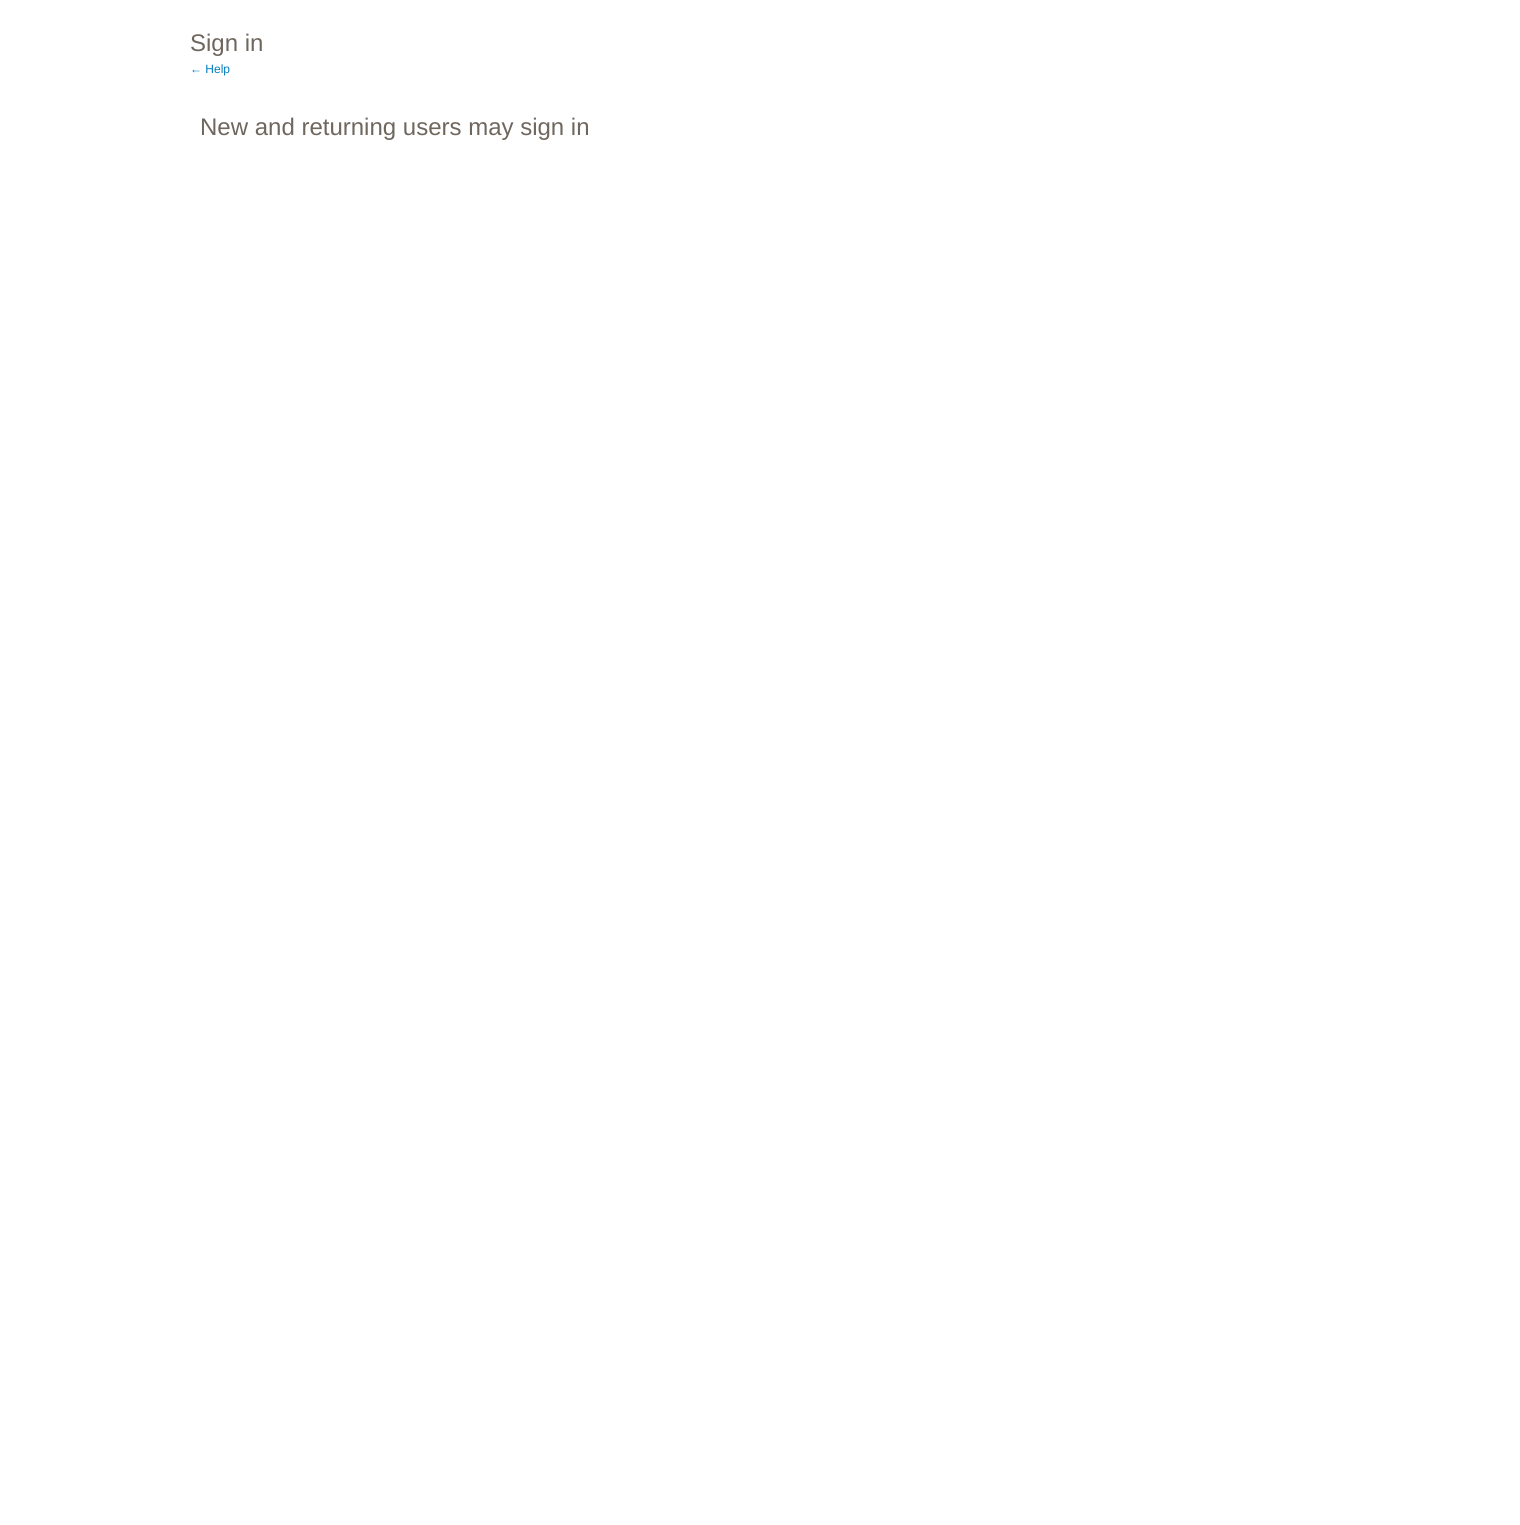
import math
import cairo


def draw(ctx):
	ctx.set_source_rgb(1, 1, 1)
	ctx.paint()
	ctx.select_font_face('Liberation Sans')
	ctx.set_font_size(24)
	ctx.set_source_rgb(0.435, 0.404, 0.369)
	ctx.move_to(190, 51)
	ctx.show_text('Sign in')
	ctx.set_font_size(12)
	ctx.set_source_rgb(0, 0.49, 0.749)
	ctx.move_to(190, 73)
	ctx.show_text('← Help')
	ctx.set_font_size(24)
	ctx.set_source_rgb(0.435, 0.404, 0.369)
	ctx.move_to(200, 135)
	ctx.show_text('New and returning users may sign in')


surface = cairo.ImageSurface(cairo.FORMAT_RGB24, 1520, 1525)
ctx = cairo.Context(surface)
options = cairo.FontOptions()
options.set_hint_metrics(cairo.HINT_METRICS_OFF)
options.set_hint_style(cairo.HINT_STYLE_NONE)
ctx.set_font_options(options)
ctx.set_miter_limit(4)
draw(ctx)
surface.write_to_png('image.png')
